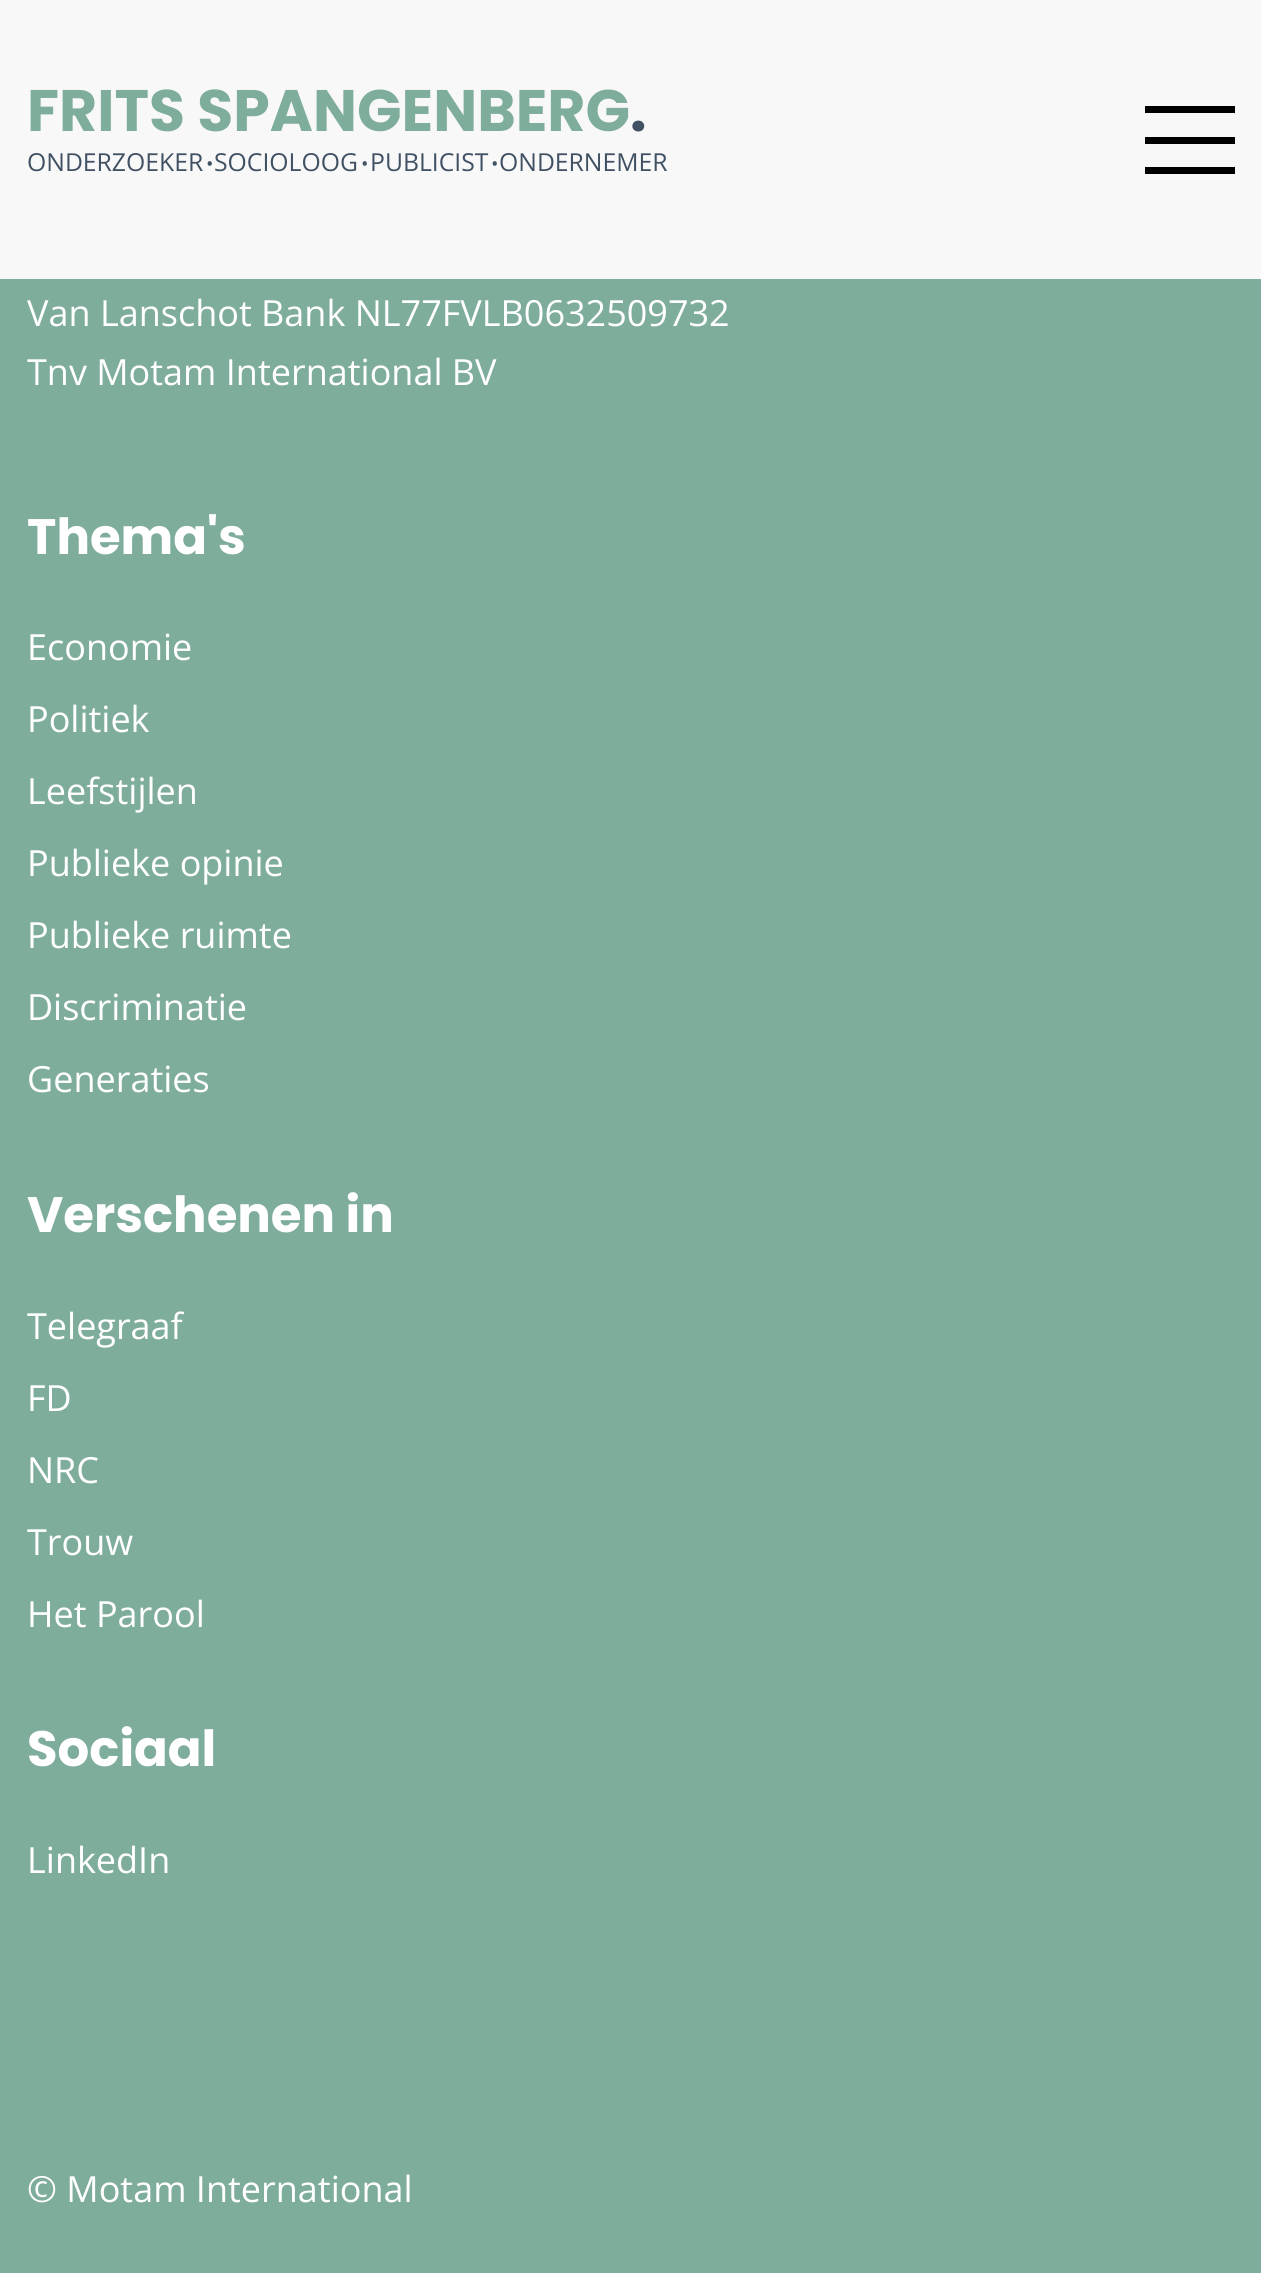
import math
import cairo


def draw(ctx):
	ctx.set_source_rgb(0.498, 0.678, 0.608)
	ctx.paint()
	ctx.set_source_rgb(0.969, 0.969, 0.969)
	ctx.rectangle(0, 0, 1261, 279)
	ctx.fill()
	ctx.select_font_face('Poppins', cairo.FONT_SLANT_NORMAL, cairo.FONT_WEIGHT_BOLD)
	ctx.set_font_size(58.5)
	ctx.set_source_rgb(0.498, 0.678, 0.608)
	ctx.move_to(27, 131)
	ctx.show_text('FRITS SPANGENBERG')
	ctx.set_source_rgb(0.255, 0.318, 0.392)
	ctx.move_to(630, 131)
	ctx.show_text('.')
	ctx.select_font_face('Open Sans')
	ctx.set_font_size(24.75)
	ctx.move_to(27, 171)
	ctx.show_text('ONDERZOEKER')
	ctx.set_font_size(36)
	ctx.move_to(205, 176)
	ctx.show_text('·')
	ctx.set_font_size(24.75)
	ctx.move_to(214, 171)
	ctx.show_text('SOCIOLOOG')
	ctx.set_font_size(36)
	ctx.move_to(360, 176)
	ctx.show_text('·')
	ctx.set_font_size(24.75)
	ctx.move_to(370, 171)
	ctx.show_text('PUBLICIST')
	ctx.set_font_size(36)
	ctx.move_to(490, 176)
	ctx.show_text('·')
	ctx.set_font_size(24.75)
	ctx.move_to(499, 171)
	ctx.show_text('ONDERNEMER')
	ctx.set_source_rgb(0, 0, 0)
	ctx.rectangle(1145, 106, 90, 7)
	ctx.rectangle(1145, 137, 90, 7)
	ctx.rectangle(1145, 167, 90, 7)
	ctx.fill()
	ctx.set_font_size(36)
	ctx.set_source_rgb(1, 1, 1)
	ctx.move_to(27, 326)
	ctx.show_text('Van Lanschot Bank NL77FVLB0632509732')
	ctx.move_to(27, 385)
	ctx.show_text('Tnv Motam International BV')
	ctx.select_font_face('Poppins', cairo.FONT_SLANT_NORMAL, cairo.FONT_WEIGHT_BOLD)
	ctx.set_font_size(49.75)
	ctx.move_to(27, 554)
	ctx.show_text('Thema\'s')
	ctx.select_font_face('Open Sans')
	ctx.set_font_size(36)
	for x, y, s in [
		(27, 660, 'Economie'),
		(27, 732, 'Politiek'),
		(27, 804, 'Leefstijlen'),
		(27, 876, 'Publieke opinie'),
		(27, 948, 'Publieke ruimte'),
		(27, 1020, 'Discriminatie'),
		(27, 1092, 'Generaties'),
	]:
		ctx.move_to(x, y)
		ctx.show_text(s)
	ctx.select_font_face('Poppins', cairo.FONT_SLANT_NORMAL, cairo.FONT_WEIGHT_BOLD)
	ctx.set_font_size(49.75)
	ctx.move_to(27, 1232)
	ctx.show_text('Verschenen in')
	ctx.select_font_face('Open Sans')
	ctx.set_font_size(36)
	for x, y, s in [
		(27, 1339, 'Telegraaf'),
		(27, 1411, 'FD'),
		(27, 1483, 'NRC'),
		(27, 1555, 'Trouw'),
		(27, 1627, 'Het Parool'),
	]:
		ctx.move_to(x, y)
		ctx.show_text(s)
	ctx.select_font_face('Poppins', cairo.FONT_SLANT_NORMAL, cairo.FONT_WEIGHT_BOLD)
	ctx.set_font_size(49.75)
	ctx.move_to(27, 1766)
	ctx.show_text('Sociaal')
	ctx.select_font_face('Open Sans')
	ctx.set_font_size(36)
	ctx.move_to(27, 1873)
	ctx.show_text('LinkedIn')
	ctx.move_to(27, 2202)
	ctx.show_text('© Motam International')


surface = cairo.ImageSurface(cairo.FORMAT_RGB24, 1261, 2273)
ctx = cairo.Context(surface)
options = cairo.FontOptions()
options.set_hint_metrics(cairo.HINT_METRICS_OFF)
options.set_hint_style(cairo.HINT_STYLE_NONE)
ctx.set_font_options(options)
ctx.set_miter_limit(4)
draw(ctx)
surface.write_to_png('image.png')
